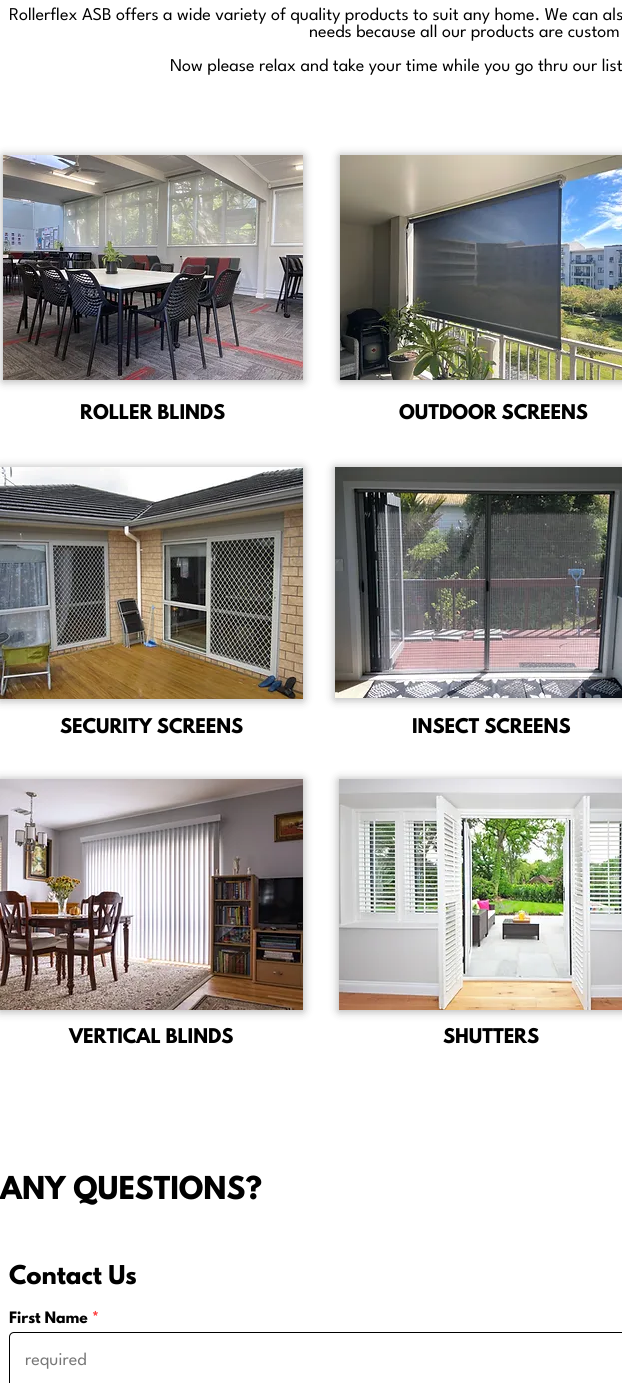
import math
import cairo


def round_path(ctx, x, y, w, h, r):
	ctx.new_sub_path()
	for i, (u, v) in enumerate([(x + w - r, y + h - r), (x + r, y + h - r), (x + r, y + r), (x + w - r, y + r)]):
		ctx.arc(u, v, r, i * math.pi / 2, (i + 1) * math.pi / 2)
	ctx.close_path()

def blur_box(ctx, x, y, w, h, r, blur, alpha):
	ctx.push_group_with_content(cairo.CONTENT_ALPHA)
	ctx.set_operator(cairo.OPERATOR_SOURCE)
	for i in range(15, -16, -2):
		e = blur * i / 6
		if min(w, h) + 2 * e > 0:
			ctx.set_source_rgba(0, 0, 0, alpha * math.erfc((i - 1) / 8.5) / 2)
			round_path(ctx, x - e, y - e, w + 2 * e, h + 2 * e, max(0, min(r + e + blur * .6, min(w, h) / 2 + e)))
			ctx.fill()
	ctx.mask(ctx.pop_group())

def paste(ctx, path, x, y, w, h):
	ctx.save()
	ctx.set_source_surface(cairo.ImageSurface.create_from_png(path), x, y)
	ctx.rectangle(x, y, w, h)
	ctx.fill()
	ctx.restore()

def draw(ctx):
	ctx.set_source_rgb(1, 1, 1)
	ctx.paint()
	ctx.select_font_face('League Spartan')
	ctx.set_font_size(18)
	ctx.set_source_rgb(0, 0, 0)
	for x, y, s in [
		(9, 20, 'Rollerflex ASB offers a wide variety of quality products to suit any home. We can als'),
		(309, 37, 'needs because all our products are custom'),
		(170, 71, 'Now please relax and take your time while you go thru our list'),
	]:
		ctx.move_to(x, y)
		ctx.show_text(s)
	ctx.set_source_rgb(0, 0, 0)
	blur_box(ctx, 3, 156, 300, 225, 0, 5, 0.34)
	paste(ctx, 'media/1.png', 3, 155, 300, 225)
	blur_box(ctx, 340, 156, 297, 225, 0, 5, 0.34)
	paste(ctx, 'media/2.png', 340, 155, 282, 225)
	ctx.select_font_face('League Spartan', cairo.FONT_SLANT_NORMAL, cairo.FONT_WEIGHT_BOLD)
	ctx.set_source_rgb(0, 0, 0)
	ctx.move_to(80, 419)
	ctx.show_text('ROLLER BLINDS')
	ctx.move_to(399, 419)
	ctx.show_text('OUTDOOR SCREENS')
	ctx.set_source_rgb(0, 0, 0)
	blur_box(ctx, 0, 468, 303, 232, 0, 5, 0.34)
	paste(ctx, 'media/3.png', 0, 467, 303, 232)
	blur_box(ctx, 335, 468, 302, 231, 0, 5, 0.34)
	paste(ctx, 'media/4.png', 335, 467, 287, 231)
	ctx.set_source_rgb(0, 0, 0)
	ctx.move_to(60, 733)
	ctx.show_text('SECURITY SCREENS')
	ctx.move_to(412, 733)
	ctx.show_text('INSECT SCREENS')
	ctx.set_source_rgb(0, 0, 0)
	blur_box(ctx, 0, 780, 303, 231, 0, 5, 0.34)
	paste(ctx, 'media/5.png', 0, 779, 303, 231)
	blur_box(ctx, 339, 780, 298, 231, 0, 5, 0.34)
	paste(ctx, 'media/6.png', 339, 779, 283, 231)
	ctx.set_source_rgb(0, 0, 0)
	ctx.move_to(69, 1043)
	ctx.show_text('VERTICAL BLINDS')
	ctx.move_to(443, 1043)
	ctx.show_text('SHUTTERS')
	ctx.set_font_size(28)
	ctx.move_to(0, 1199)
	ctx.show_text('ANY QUESTIONS?')
	ctx.set_font_size(23)
	ctx.move_to(9, 1284)
	ctx.show_text('Contact Us')
	ctx.set_font_size(14)
	ctx.move_to(9, 1323)
	ctx.show_text('First Name')
	ctx.set_source_rgb(1, 0.251, 0.251)
	ctx.move_to(92, 1323)
	ctx.show_text('*')
	round_path(ctx, 9.5, 1332.5, 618, 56, 4.5)
	ctx.set_source_rgb(0, 0, 0)
	ctx.set_line_width(1)
	ctx.stroke()
	ctx.select_font_face('League Spartan')
	ctx.set_font_size(18)
	ctx.set_source_rgb(0.463, 0.463, 0.463)
	ctx.move_to(25, 1365)
	ctx.show_text('required')


surface = cairo.ImageSurface(cairo.FORMAT_RGB24, 622, 1383)
ctx = cairo.Context(surface)
options = cairo.FontOptions()
options.set_hint_metrics(cairo.HINT_METRICS_OFF)
options.set_hint_style(cairo.HINT_STYLE_NONE)
ctx.set_font_options(options)
ctx.set_miter_limit(4)
draw(ctx)
surface.write_to_png('image.png')
